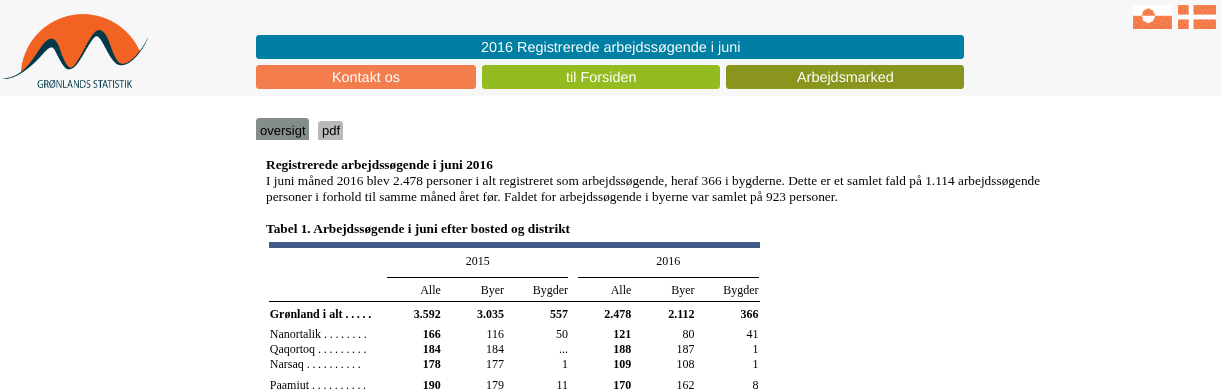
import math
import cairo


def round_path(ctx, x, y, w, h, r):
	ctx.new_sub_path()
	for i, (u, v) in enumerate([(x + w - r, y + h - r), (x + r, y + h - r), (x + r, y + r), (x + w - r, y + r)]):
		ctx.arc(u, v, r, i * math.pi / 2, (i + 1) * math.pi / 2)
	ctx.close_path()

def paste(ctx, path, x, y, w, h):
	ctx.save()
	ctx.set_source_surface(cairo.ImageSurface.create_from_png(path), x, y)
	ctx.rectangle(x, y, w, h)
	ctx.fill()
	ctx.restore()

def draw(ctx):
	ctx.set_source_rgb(1, 1, 1)
	ctx.paint()
	ctx.set_source_rgb(0.965, 0.965, 0.969)
	round_path(ctx, 0, 0, 1221, 96, 3)
	ctx.fill()
	paste(ctx, 'media/1.png', 2, 13, 146, 76)
	ctx.set_source_rgb(0, 0.498, 0.643)
	round_path(ctx, 256, 35, 708, 24, 3)
	ctx.fill()
	ctx.select_font_face('Liberation Sans')
	ctx.set_font_size(14.4)
	ctx.set_source_rgb(1, 1, 1)
	ctx.move_to(481, 52)
	ctx.show_text('2016 Registrerede arbejdssøgende i juni')
	ctx.set_source_rgb(0.957, 0.49, 0.302)
	round_path(ctx, 256, 65, 220, 24, 3)
	ctx.fill()
	ctx.set_source_rgb(1, 1, 1)
	ctx.move_to(332, 82)
	ctx.show_text('Kontakt os')
	ctx.set_source_rgb(0.58, 0.733, 0.122)
	round_path(ctx, 482, 65, 238, 24, 3)
	ctx.fill()
	ctx.set_source_rgb(1, 1, 1)
	ctx.move_to(566, 82)
	ctx.show_text('til Forsiden')
	ctx.set_source_rgb(0.541, 0.584, 0.118)
	round_path(ctx, 726, 65, 238, 24, 3)
	ctx.fill()
	ctx.set_source_rgb(1, 1, 1)
	ctx.move_to(797, 82)
	ctx.show_text('Arbejdsmarked')
	paste(ctx, 'media/2.png', 1133, 5, 39, 24)
	paste(ctx, 'media/3.png', 1178, 5, 38, 24)
	ctx.set_source_rgb(0.518, 0.549, 0.549)
	ctx.new_path()
	ctx.move_to(259, 118)
	ctx.line_to(306, 118)
	ctx.curve_to(307.5, 118, 309, 119.5, 309, 121)
	ctx.line_to(309, 140)
	ctx.line_to(256, 140)
	ctx.line_to(256, 121)
	ctx.curve_to(256, 119.5, 257.5, 118, 259, 118)
	ctx.close_path()
	ctx.fill()
	ctx.set_font_size(13)
	ctx.set_source_rgb(0, 0, 0)
	ctx.move_to(260, 135)
	ctx.show_text('oversigt')
	ctx.set_source_rgb(0.722, 0.729, 0.722)
	ctx.new_path()
	ctx.move_to(321, 121)
	ctx.line_to(340, 121)
	ctx.curve_to(341.5, 121, 343, 122.5, 343, 124)
	ctx.line_to(343, 140)
	ctx.line_to(318, 140)
	ctx.line_to(318, 124)
	ctx.curve_to(318, 122.5, 319.5, 121, 321, 121)
	ctx.close_path()
	ctx.fill()
	ctx.set_source_rgb(0, 0, 0)
	ctx.move_to(322, 135)
	ctx.show_text('pdf')
	paste(ctx, 'media/4.png', 266, 160, 774, 229)


surface = cairo.ImageSurface(cairo.FORMAT_RGB24, 1221, 391)
ctx = cairo.Context(surface)
options = cairo.FontOptions()
options.set_hint_metrics(cairo.HINT_METRICS_OFF)
options.set_hint_style(cairo.HINT_STYLE_NONE)
ctx.set_font_options(options)
ctx.set_miter_limit(4)
draw(ctx)
surface.write_to_png('image.png')
